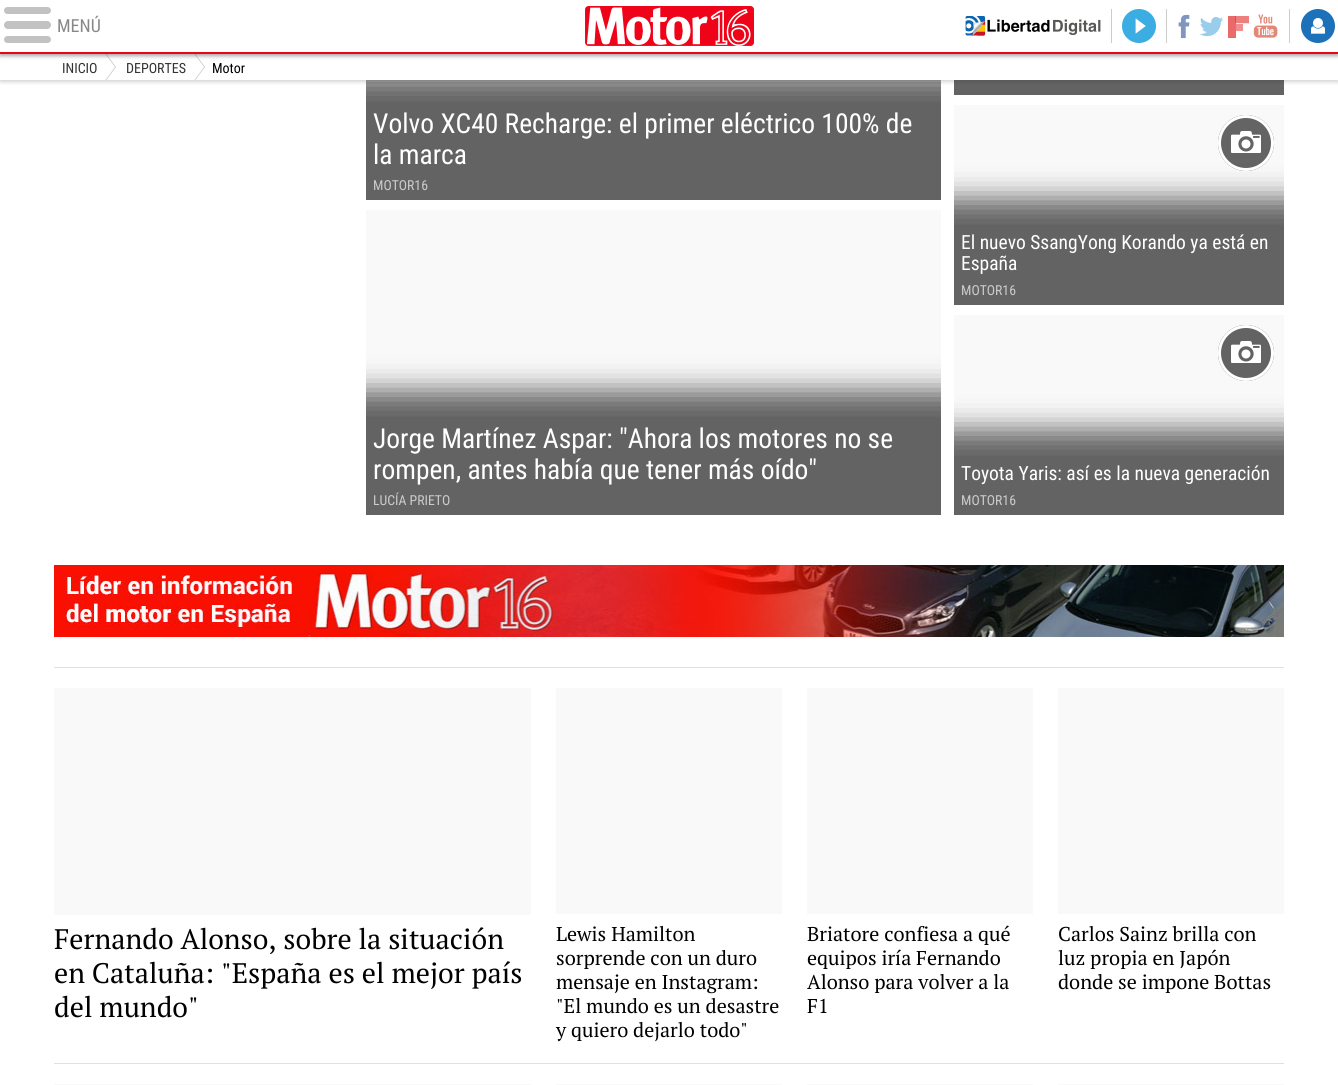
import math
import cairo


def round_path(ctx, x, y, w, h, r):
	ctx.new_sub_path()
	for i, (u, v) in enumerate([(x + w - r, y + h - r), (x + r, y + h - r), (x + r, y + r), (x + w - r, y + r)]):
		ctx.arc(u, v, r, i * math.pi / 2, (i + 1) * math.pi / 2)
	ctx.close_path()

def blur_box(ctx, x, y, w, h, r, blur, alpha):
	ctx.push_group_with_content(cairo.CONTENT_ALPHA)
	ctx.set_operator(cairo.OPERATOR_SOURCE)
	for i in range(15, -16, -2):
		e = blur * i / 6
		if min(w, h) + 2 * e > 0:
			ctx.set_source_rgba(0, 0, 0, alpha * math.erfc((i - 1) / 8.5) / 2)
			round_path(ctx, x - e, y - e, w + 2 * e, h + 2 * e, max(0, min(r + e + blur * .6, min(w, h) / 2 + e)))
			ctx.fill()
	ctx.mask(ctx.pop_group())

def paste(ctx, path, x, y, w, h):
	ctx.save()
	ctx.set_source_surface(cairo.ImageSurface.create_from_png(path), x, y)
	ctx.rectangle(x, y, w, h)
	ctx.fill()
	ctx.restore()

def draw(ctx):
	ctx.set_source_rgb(1, 1, 1)
	ctx.paint()
	ctx.set_source_rgb(0.973, 0.973, 0.973)
	ctx.rectangle(366, 80, 575, 22)
	ctx.fill()
	ctx.save()
	ctx.rectangle(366, 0, 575, 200)
	ctx.clip()
	ctx.set_source_rgb(0, 0, 0)
	blur_box(ctx, 339, 75, 630, 153, 0, 14, 0.6)
	ctx.restore()
	ctx.set_source_rgb(0.388, 0.388, 0.388)
	ctx.rectangle(954, 80, 330, 15)
	ctx.fill()
	ctx.set_source_rgb(0.196, 0.196, 0.196)
	blur_box(ctx, 0, 56, 1338, 26, 0, 2, 0.22)
	ctx.set_source_rgb(1, 1, 1)
	ctx.rectangle(0, 54, 1338, 26)
	ctx.fill()
	ctx.save()
	ctx.rectangle(54, 54, 194, 26)
	ctx.clip()
	ctx.set_source_rgb(0.8, 0.8, 0.8)
	ctx.new_path()
	ctx.move_to(102, 86)
	ctx.line_to(102, 48)
	ctx.line_to(116, 67)
	ctx.close_path()
	ctx.fill()
	ctx.set_source_rgb(1, 1, 1)
	ctx.new_path()
	ctx.move_to(101, 86)
	ctx.line_to(101, 48)
	ctx.line_to(115, 67)
	ctx.close_path()
	ctx.fill()
	ctx.set_source_rgb(0.8, 0.8, 0.8)
	ctx.new_path()
	ctx.move_to(191, 86)
	ctx.line_to(191, 48)
	ctx.line_to(205, 67)
	ctx.close_path()
	ctx.fill()
	ctx.set_source_rgb(1, 1, 1)
	ctx.new_path()
	ctx.move_to(190, 86)
	ctx.line_to(190, 48)
	ctx.line_to(204, 67)
	ctx.close_path()
	ctx.fill()
	ctx.restore()
	ctx.set_source_rgb(0.196, 0.196, 0.196)
	blur_box(ctx, 0, 2, 1338, 54, 0, 2, 0.44)
	ctx.set_source_rgb(1, 1, 1)
	ctx.rectangle(0, 0, 1338, 52)
	ctx.fill()
	ctx.set_source_rgb(0.929, 0.008, 0.086)
	ctx.rectangle(0, 52, 1338, 2)
	ctx.fill()
	ctx.set_source_rgb(0.761, 0.761, 0.761)
	round_path(ctx, 4, 7, 47, 7, 3.5)
	ctx.fill()
	round_path(ctx, 4, 21, 47, 8, 4)
	ctx.fill()
	round_path(ctx, 4, 36, 47, 7, 3.5)
	ctx.fill()
	ctx.select_font_face('Roboto Condensed')
	ctx.set_font_size(18)
	ctx.set_source_rgb(0.533, 0.533, 0.533)
	ctx.move_to(57, 32)
	ctx.show_text('MENÚ')
	paste(ctx, 'media/1.png', 585, 6, 169, 40)
	ctx.set_source_rgb(0.8, 0.8, 0.8)
	ctx.rectangle(1111, 9, 1, 34)
	ctx.fill()
	paste(ctx, 'media/2.png', 965, 16, 136, 20)
	ctx.rectangle(1166, 9, 1, 34)
	ctx.fill()
	paste(ctx, 'media/3.png', 1122, 9, 34, 34)
	ctx.rectangle(1289, 9, 1, 34)
	ctx.fill()
	paste(ctx, 'media/4.png', 1178, 14, 12, 25)
	paste(ctx, 'media/5.png', 1200, 17, 24, 20)
	paste(ctx, 'media/6.png', 1228, 16, 21, 22)
	paste(ctx, 'media/7.png', 1253, 14, 25, 24)
	paste(ctx, 'media/8.png', 1301, 9, 34, 34)
	ctx.set_font_size(14)
	ctx.set_source_rgb(0.2, 0.2, 0.2)
	ctx.move_to(62, 73)
	ctx.show_text('INICIO')
	ctx.move_to(126, 73)
	ctx.show_text('DEPORTES')
	ctx.set_source_rgb(0, 0, 0)
	ctx.move_to(212, 73)
	ctx.show_text('Motor')
	ctx.set_source_rgb(0.388, 0.388, 0.388)
	ctx.rectangle(366, 102, 575, 98)
	ctx.fill()
	ctx.set_font_size(27.5)
	ctx.set_source_rgb(1, 1, 1)
	ctx.move_to(373, 133)
	ctx.show_text('Volvo XC40 Recharge: el primer eléctrico 100% de')
	ctx.move_to(373, 164)
	ctx.show_text('la marca')
	ctx.set_font_size(13.75)
	ctx.set_source_rgb(0.8, 0.8, 0.8)
	ctx.move_to(373, 190)
	ctx.show_text('MOTOR16')
	ctx.set_source_rgb(0.973, 0.973, 0.973)
	ctx.rectangle(366, 210, 575, 207)
	ctx.fill()
	ctx.save()
	ctx.rectangle(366, 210, 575, 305)
	ctx.clip()
	ctx.set_source_rgb(0, 0, 0)
	blur_box(ctx, 339, 390, 630, 153, 0, 14, 0.6)
	ctx.restore()
	ctx.set_source_rgb(0.388, 0.388, 0.388)
	ctx.rectangle(366, 417, 575, 98)
	ctx.fill()
	ctx.set_font_size(27.5)
	ctx.set_source_rgb(1, 1, 1)
	ctx.move_to(373, 448)
	ctx.show_text('Jorge Martínez Aspar: "Ahora los motores no se')
	ctx.move_to(373, 479)
	ctx.show_text('rompen, antes había que tener más oído"')
	ctx.set_font_size(13.75)
	ctx.set_source_rgb(0.8, 0.8, 0.8)
	ctx.move_to(373, 505)
	ctx.show_text('LUCÍA PRIETO')
	ctx.set_source_rgb(0.973, 0.973, 0.973)
	ctx.rectangle(954, 105, 330, 120)
	ctx.fill()
	ctx.save()
	ctx.rectangle(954, 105, 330, 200)
	ctx.clip()
	ctx.set_source_rgb(0, 0, 0)
	blur_box(ctx, 927, 198, 385, 135, 0, 14, 0.6)
	ctx.restore()
	ctx.set_source_rgba(0, 0, 0, 0.6)
	ctx.arc(1246, 143, 28, 0, 2 * math.pi)
	ctx.fill()
	paste(ctx, 'media/9.png', 1231, 131, 30, 22)
	ctx.arc(1246, 143, 26.5, 0, 2 * math.pi)
	ctx.set_source_rgb(1, 1, 1)
	ctx.set_line_width(3)
	ctx.stroke()
	ctx.set_source_rgb(0.388, 0.388, 0.388)
	ctx.rectangle(954, 225, 330, 80)
	ctx.fill()
	ctx.set_font_size(19.5)
	ctx.set_source_rgb(1, 1, 1)
	ctx.move_to(961, 249)
	ctx.show_text('El nuevo SsangYong Korando ya está en')
	ctx.move_to(961, 270)
	ctx.show_text('España')
	ctx.set_font_size(13.75)
	ctx.set_source_rgb(0.8, 0.8, 0.8)
	ctx.move_to(961, 295)
	ctx.show_text('MOTOR16')
	ctx.set_source_rgb(0.973, 0.973, 0.973)
	ctx.rectangle(954, 315, 330, 141)
	ctx.fill()
	ctx.set_source_rgb(0.388, 0.388, 0.388)
	ctx.arc(1246, 353, 28, 0, 2 * math.pi)
	ctx.fill()
	paste(ctx, 'media/10.png', 1231, 341, 30, 22)
	ctx.arc(1246, 353, 26.5, 0, 2 * math.pi)
	ctx.set_source_rgb(1, 1, 1)
	ctx.stroke()
	ctx.save()
	ctx.rectangle(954, 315, 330, 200)
	ctx.clip()
	ctx.set_source_rgb(0, 0, 0)
	blur_box(ctx, 927, 429, 385, 114, 0, 14, 0.6)
	ctx.restore()
	ctx.set_source_rgb(0.388, 0.388, 0.388)
	ctx.rectangle(954, 456, 330, 59)
	ctx.fill()
	ctx.set_font_size(19.5)
	ctx.set_source_rgb(1, 1, 1)
	ctx.move_to(961, 480)
	ctx.show_text('Toyota Yaris: así es la nueva generación')
	ctx.set_font_size(13.75)
	ctx.set_source_rgb(0.8, 0.8, 0.8)
	ctx.move_to(961, 505)
	ctx.show_text('MOTOR16')
	ctx.set_source_rgb(0.882, 0.878, 0.878)
	ctx.rectangle(54, 667, 1230, 1)
	ctx.fill()
	paste(ctx, 'media/11.png', 54, 565, 1230, 72)
	ctx.rectangle(54, 1063, 1230, 1)
	ctx.fill()
	ctx.set_source_rgb(0.973, 0.973, 0.973)
	ctx.rectangle(54, 688, 477, 227)
	ctx.fill()
	ctx.select_font_face('PT Serif')
	ctx.set_font_size(28.25)
	ctx.set_source_rgb(0, 0, 0)
	for x, y, s in [
		(54, 949, 'Fernando Alonso, sobre la situación'),
		(54, 983, 'en Cataluña: "España es el mejor país'),
		(54, 1017, 'del mundo"'),
	]:
		ctx.move_to(x, y)
		ctx.show_text(s)
	ctx.set_source_rgb(0.973, 0.973, 0.973)
	ctx.rectangle(556, 688, 226, 226)
	ctx.fill()
	ctx.set_font_size(20)
	ctx.set_source_rgb(0, 0, 0)
	for x, y, s in [
		(556, 941, 'Lewis Hamilton'),
		(556, 965, 'sorprende con un duro'),
		(556, 989, 'mensaje en Instagram:'),
		(556, 1013, '"El mundo es un desastre'),
		(556, 1037, 'y quiero dejarlo todo"'),
	]:
		ctx.move_to(x, y)
		ctx.show_text(s)
	ctx.set_source_rgb(0.973, 0.973, 0.973)
	ctx.rectangle(807, 688, 226, 226)
	ctx.fill()
	ctx.set_source_rgb(0, 0, 0)
	for x, y, s in [
		(807, 941, 'Briatore confiesa a qué'),
		(807, 965, 'equipos iría Fernando'),
		(807, 989, 'Alonso para volver a la'),
		(807, 1013, 'F1'),
	]:
		ctx.move_to(x, y)
		ctx.show_text(s)
	ctx.set_source_rgb(0.973, 0.973, 0.973)
	ctx.rectangle(1058, 688, 226, 226)
	ctx.fill()
	ctx.set_source_rgb(0, 0, 0)
	for x, y, s in [
		(1058, 941, 'Carlos Sainz brilla con'),
		(1058, 965, 'luz propia en Japón'),
		(1058, 989, 'donde se impone Bottas'),
	]:
		ctx.move_to(x, y)
		ctx.show_text(s)
	ctx.set_source_rgb(0.973, 0.973, 0.973)
	ctx.rectangle(54, 1084, 477, 1)
	ctx.rectangle(556, 1084, 226, 1)
	ctx.rectangle(807, 1084, 226, 1)
	ctx.rectangle(1058, 1084, 226, 1)
	ctx.fill()


surface = cairo.ImageSurface(cairo.FORMAT_RGB24, 1338, 1085)
ctx = cairo.Context(surface)
options = cairo.FontOptions()
options.set_hint_metrics(cairo.HINT_METRICS_OFF)
options.set_hint_style(cairo.HINT_STYLE_NONE)
ctx.set_font_options(options)
ctx.set_miter_limit(4)
draw(ctx)
surface.write_to_png('image.png')
